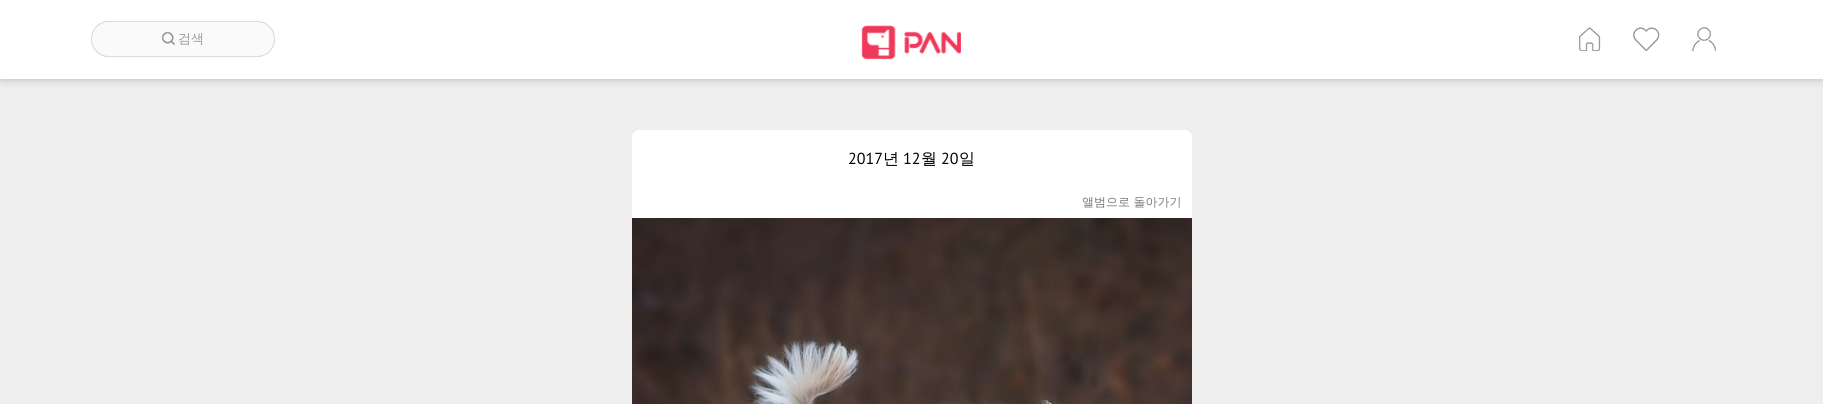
import math
import cairo


def round_path(ctx, x, y, w, h, r):
	ctx.new_sub_path()
	for i, (u, v) in enumerate([(x + w - r, y + h - r), (x + r, y + h - r), (x + r, y + r), (x + w - r, y + r)]):
		ctx.arc(u, v, r, i * math.pi / 2, (i + 1) * math.pi / 2)
	ctx.close_path()

def blur_box(ctx, x, y, w, h, r, blur, alpha):
	ctx.push_group_with_content(cairo.CONTENT_ALPHA)
	ctx.set_operator(cairo.OPERATOR_SOURCE)
	for i in range(15, -16, -2):
		e = blur * i / 6
		if min(w, h) + 2 * e > 0:
			ctx.set_source_rgba(0, 0, 0, alpha * math.erfc((i - 1) / 8.5) / 2)
			round_path(ctx, x - e, y - e, w + 2 * e, h + 2 * e, max(0, min(r + e + blur * .6, min(w, h) / 2 + e)))
			ctx.fill()
	ctx.mask(ctx.pop_group())

def paste(ctx, path, x, y, w, h):
	ctx.save()
	ctx.set_source_surface(cairo.ImageSurface.create_from_png(path), x, y)
	ctx.rectangle(x, y, w, h)
	ctx.fill()
	ctx.restore()

def draw(ctx):
	ctx.set_source_rgb(0.933, 0.933, 0.933)
	ctx.paint()
	ctx.set_source_rgb(0, 0, 0)
	blur_box(ctx, 1, 0, 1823, 80, 0, 4, 0.2)
	ctx.set_source_rgb(1, 1, 1)
	ctx.rectangle(0, 0, 1823, 79)
	ctx.fill()
	round_path(ctx, 91.5, 21.5, 183, 35, 17.5)
	ctx.set_source_rgb(0.867, 0.867, 0.867)
	ctx.set_line_width(1)
	ctx.stroke()
	ctx.set_source_rgb(0.98, 0.98, 0.98)
	round_path(ctx, 91.5, 21.5, 183, 35, 17.5)
	ctx.fill_preserve()
	ctx.set_source_rgb(0.859, 0.859, 0.859)
	ctx.stroke()
	paste(ctx, 'media/1.png', 162, 32, 13, 13)
	ctx.select_font_face('WenQuanYi Zen Hei Medium')
	ctx.set_font_size(13)
	ctx.set_source_rgb(0.6, 0.6, 0.6)
	ctx.move_to(178, 43)
	ctx.show_text('검색')
	paste(ctx, 'media/2.png', 861, 25, 100, 35)
	paste(ctx, 'media/3.png', 1579, 27, 22, 24)
	paste(ctx, 'media/4.png', 1633, 27, 27, 24)
	paste(ctx, 'media/5.png', 1692, 27, 24, 24)
	ctx.set_source_rgb(1, 1, 1)
	round_path(ctx, 632, 130, 560, 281, 7)
	ctx.fill()
	ctx.select_font_face('PT Sans')
	ctx.set_font_size(16)
	ctx.set_source_rgb(0, 0, 0)
	ctx.move_to(848, 164)
	ctx.show_text('2017')
	ctx.select_font_face('WenQuanYi Zen Hei Medium')
	ctx.move_to(883, 164)
	ctx.show_text('년')
	ctx.select_font_face('PT Sans')
	ctx.move_to(903, 164)
	ctx.show_text('12')
	ctx.select_font_face('WenQuanYi Zen Hei Medium')
	ctx.move_to(921, 164)
	ctx.show_text('월')
	ctx.select_font_face('PT Sans')
	ctx.move_to(941, 164)
	ctx.show_text('20')
	ctx.select_font_face('WenQuanYi Zen Hei Medium')
	ctx.move_to(959, 164)
	ctx.show_text('일')
	ctx.set_font_size(12)
	ctx.set_source_rgb(0.467, 0.467, 0.467)
	ctx.move_to(1082, 206)
	ctx.show_text('앨범으로 돌아가기')
	paste(ctx, 'media/6.png', 632, 218, 560, 186)


surface = cairo.ImageSurface(cairo.FORMAT_RGB24, 1823, 404)
ctx = cairo.Context(surface)
options = cairo.FontOptions()
options.set_hint_metrics(cairo.HINT_METRICS_OFF)
options.set_hint_style(cairo.HINT_STYLE_NONE)
ctx.set_font_options(options)
ctx.set_miter_limit(4)
draw(ctx)
surface.write_to_png('image.png')
